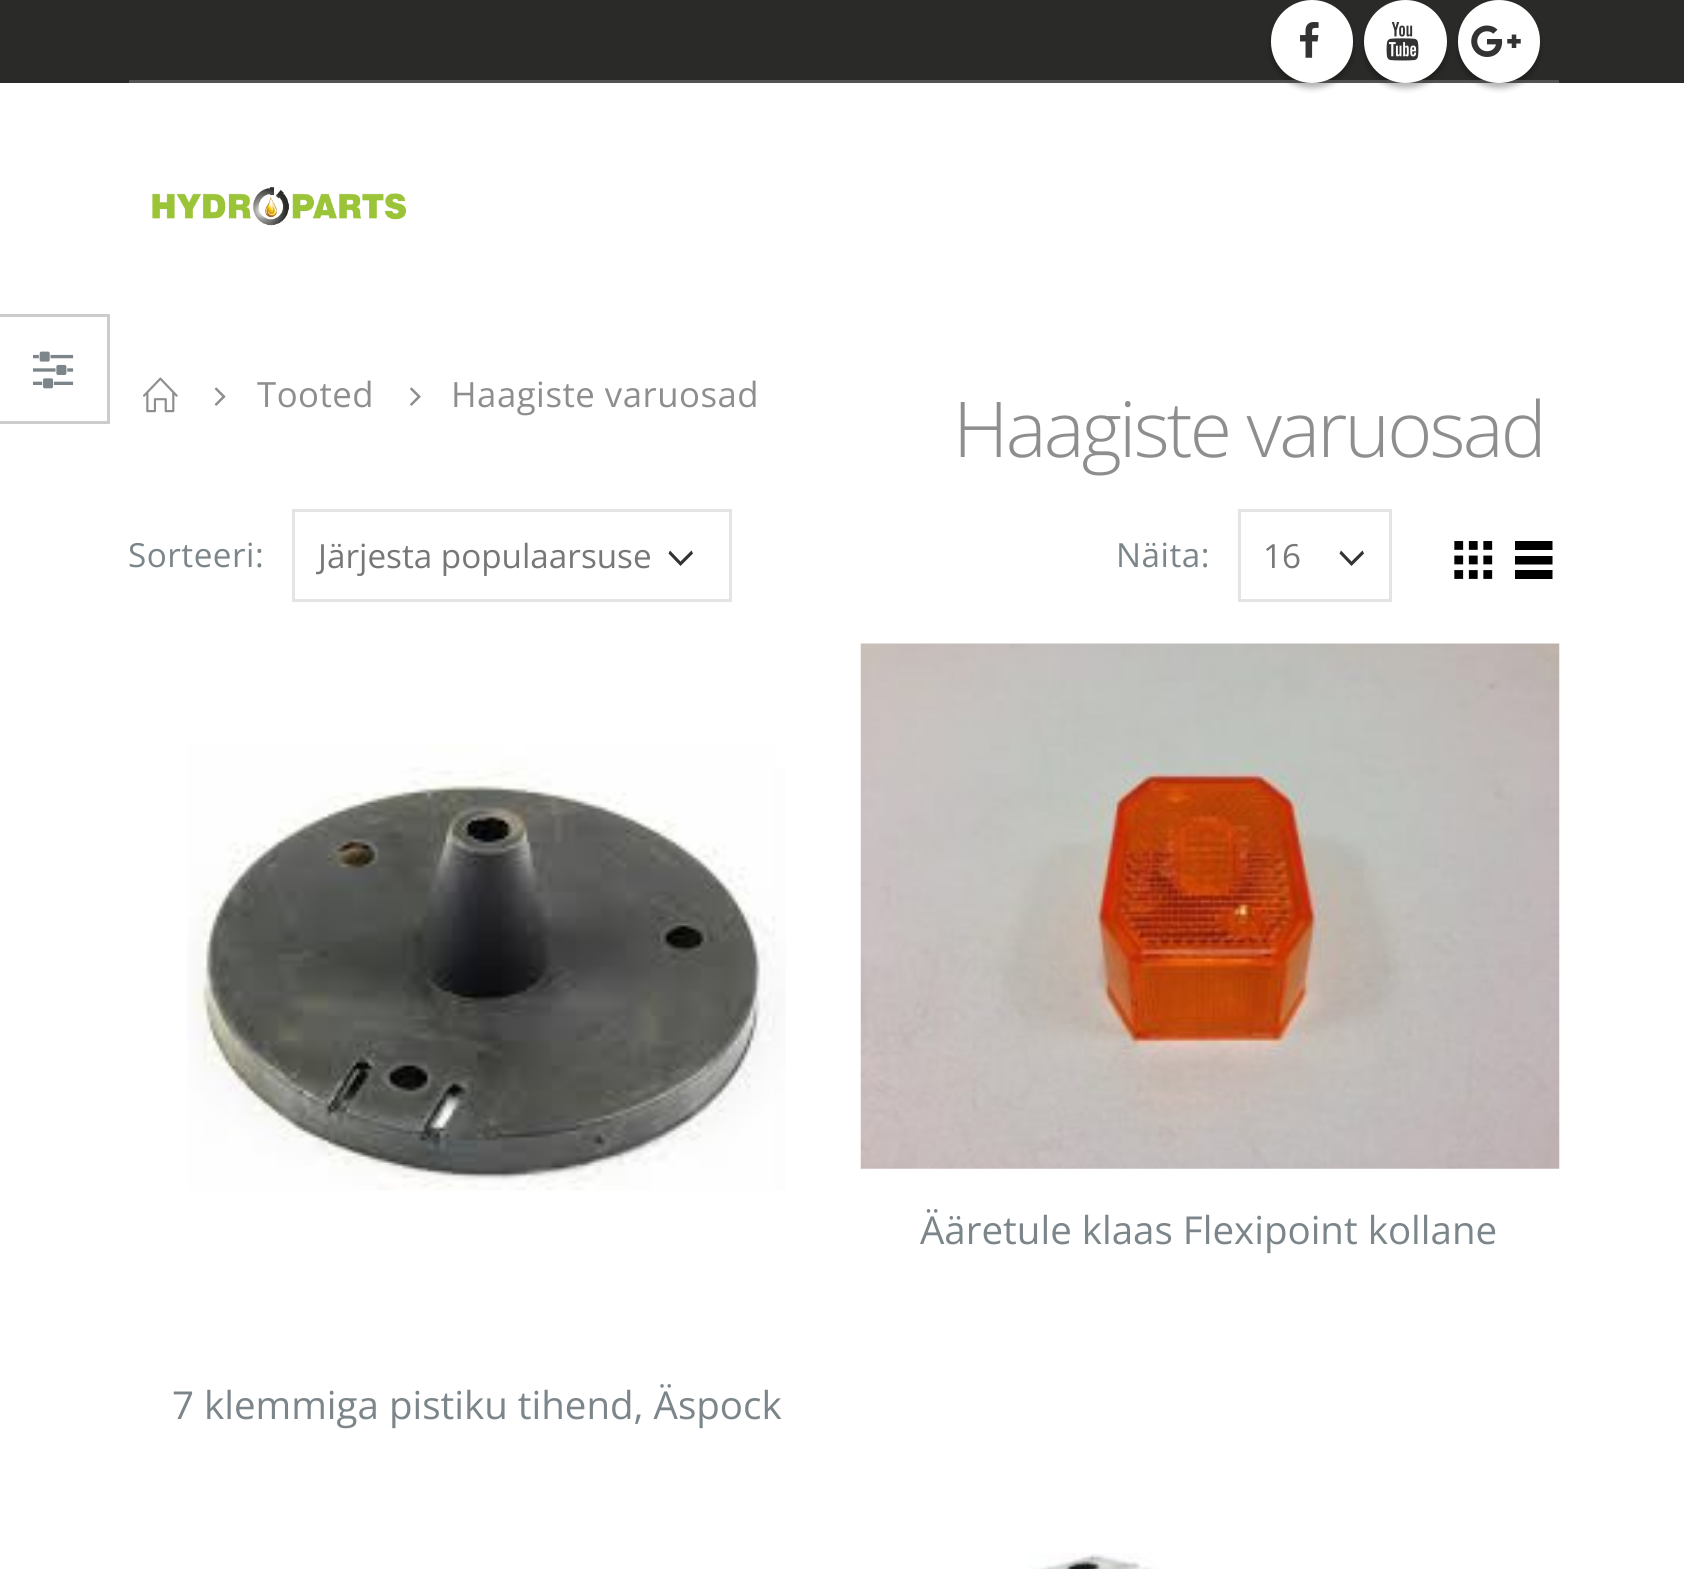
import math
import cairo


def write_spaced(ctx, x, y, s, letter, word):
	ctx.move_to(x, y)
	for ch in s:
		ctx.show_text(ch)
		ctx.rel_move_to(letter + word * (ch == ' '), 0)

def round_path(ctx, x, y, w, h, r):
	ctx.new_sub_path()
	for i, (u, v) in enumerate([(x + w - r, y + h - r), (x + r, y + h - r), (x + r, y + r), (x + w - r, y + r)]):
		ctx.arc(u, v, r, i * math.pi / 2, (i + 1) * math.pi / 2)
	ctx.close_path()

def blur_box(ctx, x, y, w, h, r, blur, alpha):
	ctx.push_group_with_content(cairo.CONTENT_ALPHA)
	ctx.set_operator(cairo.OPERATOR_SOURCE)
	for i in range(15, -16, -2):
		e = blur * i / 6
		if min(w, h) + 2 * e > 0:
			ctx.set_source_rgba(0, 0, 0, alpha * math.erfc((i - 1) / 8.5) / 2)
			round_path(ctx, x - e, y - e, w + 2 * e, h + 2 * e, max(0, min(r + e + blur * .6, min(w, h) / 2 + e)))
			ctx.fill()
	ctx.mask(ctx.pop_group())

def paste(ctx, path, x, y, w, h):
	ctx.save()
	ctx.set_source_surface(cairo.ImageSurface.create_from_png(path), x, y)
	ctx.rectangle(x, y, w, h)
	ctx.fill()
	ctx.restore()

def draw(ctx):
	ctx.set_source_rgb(1, 1, 1)
	ctx.paint()
	ctx.set_source_rgb(0.8, 0.8, 0.8)
	ctx.rectangle(0, 314, 110, 3)
	ctx.rectangle(107, 314, 3, 110)
	ctx.rectangle(0, 421, 110, 3)
	ctx.fill()
	paste(ctx, 'media/1.png', 33, 351, 41, 38)
	ctx.set_source_rgb(0.165, 0.165, 0.157)
	ctx.rectangle(0, 0, 1684, 83)
	ctx.fill()
	ctx.set_source_rgb(0, 0, 0)
	blur_box(ctx, 1271, 6, 82, 82, 41, 3, 0.3)
	ctx.set_source_rgb(1, 1, 1)
	round_path(ctx, 1271, 0, 82, 83, 41)
	ctx.fill()
	paste(ctx, 'media/2.png', 1300, 22, 19, 36)
	ctx.set_source_rgb(0, 0, 0)
	blur_box(ctx, 1364, 6, 83, 82, 41, 3, 0.3)
	ctx.set_source_rgb(1, 1, 1)
	ctx.arc(1405.5, 41.5, 41.5, 0, 2 * math.pi)
	ctx.fill()
	paste(ctx, 'media/3.png', 1386, 22, 33, 39)
	ctx.set_source_rgb(0, 0, 0)
	blur_box(ctx, 1458, 6, 82, 82, 41, 3, 0.3)
	ctx.set_source_rgb(1, 1, 1)
	round_path(ctx, 1458, 0, 82, 83, 41)
	ctx.fill()
	paste(ctx, 'media/4.png', 1471, 25, 50, 32)
	ctx.set_source_rgba(0.973, 0.973, 0.973, 0.2)
	ctx.rectangle(129, 80, 1430, 3)
	ctx.fill()
	paste(ctx, 'media/5.png', 152, 187, 255, 39)
	paste(ctx, 'media/6.png', 143, 377, 35, 36)
	paste(ctx, 'media/7.png', 214, 387, 12, 19)
	ctx.select_font_face('Open Sans')
	ctx.set_font_size(34.75)
	ctx.set_source_rgb(0.557, 0.557, 0.557)
	write_spaced(ctx, 257, 407, 'Tooted', 0.5, 0)
	paste(ctx, 'media/8.png', 410, 387, 11, 19)
	write_spaced(ctx, 451, 407, 'Haagiste varuosad', 0.5, 0)
	ctx.select_font_face('Open Sans Light')
	ctx.set_font_size(77)
	write_spaced(ctx, 953, 457, 'Haagiste varuosad', -2.75, 0)
	ctx.select_font_face('Open Sans')
	ctx.set_font_size(33.25)
	ctx.set_source_rgb(0.482, 0.522, 0.541)
	write_spaced(ctx, 128, 567, 'Sorteeri:', 0.5, 0)
	ctx.set_source_rgb(0.2, 0.2, 0.2)
	ctx.set_fill_rule(cairo.FILL_RULE_EVEN_ODD)
	ctx.new_path()
	ctx.move_to(681, 565.5)
	ctx.line_to(693, 553.5)
	ctx.line_to(691.5, 550.5)
	ctx.line_to(680.5, 561.5)
	ctx.line_to(670, 550.5)
	ctx.line_to(668.5, 553.5)
	ctx.line_to(680.5, 566)
	ctx.close_path()
	ctx.fill()
	ctx.rectangle(293.5, 510.5, 437, 90)
	ctx.set_source_rgb(0.894, 0.894, 0.894)
	ctx.set_line_width(3)
	ctx.stroke()
	ctx.save()
	ctx.set_fill_rule(cairo.FILL_RULE_WINDING)
	ctx.rectangle(316, 531, 344, 49)
	ctx.clip()
	ctx.set_source_rgb(0.467, 0.467, 0.467)
	ctx.move_to(318, 568)
	ctx.show_text('Järjesta populaarsuse')
	ctx.restore()
	ctx.set_source_rgb(0.482, 0.522, 0.541)
	write_spaced(ctx, 1116, 567, 'Näita:', 0.5, 0)
	ctx.set_source_rgb(0.2, 0.2, 0.2)
	ctx.new_path()
	ctx.move_to(1352, 565.5)
	ctx.line_to(1364, 553.5)
	ctx.line_to(1362.5, 550.5)
	ctx.line_to(1351.5, 561.5)
	ctx.line_to(1341, 550.5)
	ctx.line_to(1339.5, 553.5)
	ctx.line_to(1351.5, 566)
	ctx.close_path()
	ctx.fill()
	ctx.rectangle(1239.5, 510.5, 151, 90)
	ctx.set_source_rgb(0.894, 0.894, 0.894)
	ctx.stroke()
	ctx.set_source_rgb(0.467, 0.467, 0.467)
	ctx.move_to(1263, 568)
	ctx.show_text('16')
	paste(ctx, 'media/9.png', 1454, 541, 39, 38)
	ctx.set_source_rgb(0, 0, 0)
	ctx.set_fill_rule(cairo.FILL_RULE_WINDING)
	ctx.new_path()
	ctx.move_to(1515, 541)
	ctx.line_to(1552.5, 541)
	ctx.line_to(1552.5, 550)
	ctx.line_to(1515, 550)
	ctx.close_path()
	ctx.move_to(1515, 556)
	ctx.line_to(1552.5, 556)
	ctx.line_to(1552.5, 564.5)
	ctx.line_to(1515, 564.5)
	ctx.close_path()
	ctx.move_to(1515, 570)
	ctx.line_to(1552.5, 570)
	ctx.line_to(1552.5, 579)
	ctx.line_to(1515, 579)
	ctx.close_path()
	ctx.fill()
	paste(ctx, 'media/10.png', 860, 643, 700, 526)
	ctx.set_font_size(38.5)
	ctx.set_source_rgb(0.482, 0.522, 0.541)
	ctx.move_to(920, 1244)
	ctx.show_text('Ääretule klaas Flexipoint kollane')
	paste(ctx, 'media/11.png', 187, 743, 599, 448)
	ctx.move_to(172, 1419)
	ctx.show_text('7 klemmiga pistiku tihend, Äspock')
	paste(ctx, 'media/12.png', 1028, 1553, 130, 16)


surface = cairo.ImageSurface(cairo.FORMAT_RGB24, 1684, 1569)
ctx = cairo.Context(surface)
options = cairo.FontOptions()
options.set_hint_metrics(cairo.HINT_METRICS_OFF)
options.set_hint_style(cairo.HINT_STYLE_NONE)
ctx.set_font_options(options)
ctx.set_miter_limit(4)
draw(ctx)
surface.write_to_png('image.png')
